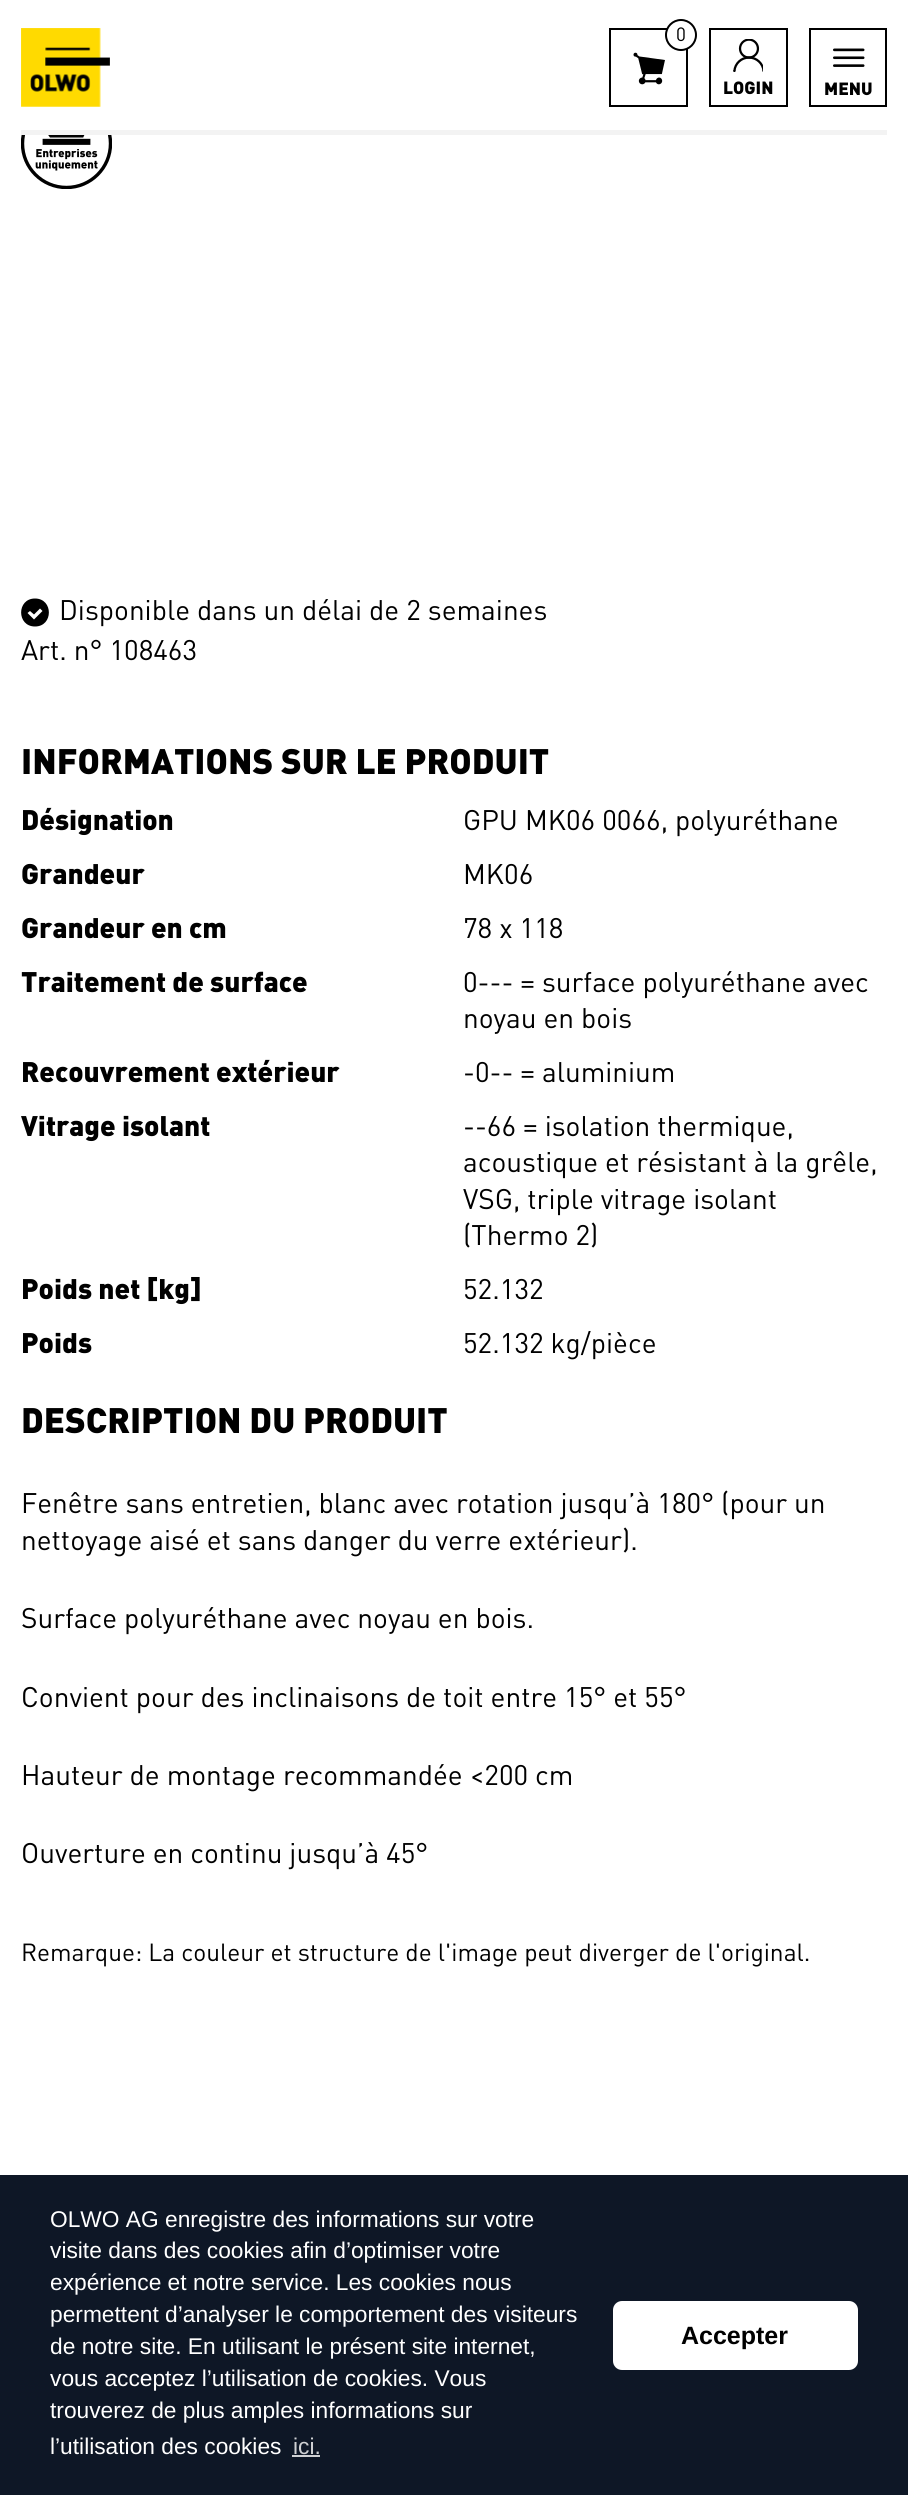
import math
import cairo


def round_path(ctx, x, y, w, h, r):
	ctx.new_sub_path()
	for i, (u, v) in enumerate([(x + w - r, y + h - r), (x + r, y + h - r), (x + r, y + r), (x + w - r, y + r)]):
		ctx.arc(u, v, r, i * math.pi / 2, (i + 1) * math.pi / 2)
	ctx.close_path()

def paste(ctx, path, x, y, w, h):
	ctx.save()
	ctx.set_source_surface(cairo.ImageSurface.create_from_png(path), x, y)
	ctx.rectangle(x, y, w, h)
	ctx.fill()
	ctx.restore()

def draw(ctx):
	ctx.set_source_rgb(1, 1, 1)
	ctx.paint()
	paste(ctx, 'media/1.png', 21, 28, 89, 79)
	ctx.rectangle(610, 29, 77, 77)
	ctx.set_source_rgb(0, 0, 0)
	ctx.stroke()
	ctx.set_source_rgb(1, 1, 1)
	ctx.arc(681, 35, 15, 0, 2 * math.pi)
	ctx.fill_preserve()
	ctx.set_source_rgb(0, 0, 0)
	ctx.stroke()
	ctx.select_font_face('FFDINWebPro')
	ctx.set_font_size(19)
	ctx.move_to(676, 41)
	ctx.show_text('0')
	paste(ctx, 'media/2.png', 633, 52, 32, 33)
	ctx.rectangle(710, 29, 77, 77)
	ctx.stroke()
	paste(ctx, 'media/3.png', 733, 39, 30, 33)
	ctx.select_font_face('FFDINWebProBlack')
	ctx.set_font_size(17.5)
	ctx.move_to(723, 94)
	ctx.show_text('LOGIN')
	ctx.rectangle(810, 29, 76, 77)
	ctx.stroke()
	paste(ctx, 'media/4.png', 833, 48, 32, 19)
	ctx.move_to(824, 95)
	ctx.show_text('MENU')
	ctx.set_source_rgb(0.953, 0.953, 0.953)
	ctx.rectangle(21, 130, 866, 5)
	ctx.fill()
	paste(ctx, 'media/5.png', 21, 135, 91, 54)
	ctx.set_source_rgb(0, 0, 0)
	ctx.new_path()
	ctx.move_to(35, 598.5)
	ctx.curve_to(16.5, 598.5, 16.5, 626.5, 35, 626.5)
	ctx.curve_to(53.5, 626.5, 53.5, 598.5, 35, 598.5)
	ctx.close_path()
	ctx.move_to(34, 619.5)
	ctx.line_to(27.5, 613)
	ctx.line_to(30, 611)
	ctx.line_to(34, 614.5)
	ctx.line_to(40, 608.5)
	ctx.line_to(42.5, 611)
	ctx.close_path()
	ctx.fill()
	ctx.select_font_face('FFDINWebPro')
	ctx.set_font_size(28)
	ctx.move_to(59, 620)
	ctx.show_text('Disponible dans un délai de 2 semaines')
	ctx.move_to(21, 660)
	ctx.show_text('Art. n° 108463')
	ctx.select_font_face('FFDINWebProBlack')
	ctx.set_font_size(35)
	ctx.move_to(21, 774)
	ctx.show_text('INFORMATIONS SUR LE PRODUIT')
	ctx.set_font_size(28)
	ctx.move_to(21, 830)
	ctx.show_text('Désignation')
	ctx.select_font_face('FFDINWebPro')
	ctx.move_to(463, 830)
	ctx.show_text('GPU MK06 0066, polyuréthane')
	ctx.select_font_face('FFDINWebProBlack')
	ctx.move_to(21, 884)
	ctx.show_text('Grandeur')
	ctx.select_font_face('FFDINWebPro')
	ctx.move_to(463, 884)
	ctx.show_text('MK06')
	ctx.select_font_face('FFDINWebProBlack')
	ctx.move_to(21, 938)
	ctx.show_text('Grandeur en cm')
	ctx.select_font_face('FFDINWebPro')
	ctx.move_to(463, 938)
	ctx.show_text('78 x 118')
	ctx.select_font_face('FFDINWebProBlack')
	ctx.move_to(21, 992)
	ctx.show_text('Traitement de surface')
	ctx.select_font_face('FFDINWebPro')
	ctx.move_to(463, 992)
	ctx.show_text('0--- = surface polyuréthane avec')
	ctx.move_to(463, 1028)
	ctx.show_text('noyau en bois')
	ctx.select_font_face('FFDINWebProBlack')
	ctx.move_to(21, 1082)
	ctx.show_text('Recouvrement extérieur')
	ctx.select_font_face('FFDINWebPro')
	ctx.move_to(463, 1082)
	ctx.show_text('-0-- = aluminium')
	ctx.select_font_face('FFDINWebProBlack')
	ctx.move_to(21, 1136)
	ctx.show_text('Vitrage isolant')
	ctx.select_font_face('FFDINWebPro')
	for x, y, s in [
		(463, 1136, '--66 = isolation thermique,'),
		(463, 1172, 'acoustique et résistant à la grêle,'),
		(463, 1209, 'VSG, triple vitrage isolant'),
		(463, 1245, '(Thermo 2)'),
	]:
		ctx.move_to(x, y)
		ctx.show_text(s)
	ctx.select_font_face('FFDINWebProBlack')
	ctx.move_to(21, 1299)
	ctx.show_text('Poids net [kg]')
	ctx.select_font_face('FFDINWebPro')
	ctx.move_to(463, 1299)
	ctx.show_text('52.132')
	ctx.select_font_face('FFDINWebProBlack')
	ctx.move_to(21, 1353)
	ctx.show_text('Poids')
	ctx.select_font_face('FFDINWebPro')
	ctx.move_to(463, 1353)
	ctx.show_text('52.132 kg/pièce')
	ctx.select_font_face('FFDINWebProBlack')
	ctx.set_font_size(35)
	ctx.move_to(21, 1433)
	ctx.show_text('DESCRIPTION DU PRODUIT')
	ctx.select_font_face('FFDINWebPro')
	ctx.set_font_size(28)
	for x, y, s in [
		(21, 1513, 'Fenêtre sans entretien, blanc avec rotation jusqu’à 180° (pour un'),
		(21, 1550, 'nettoyage aisé et sans danger du verre extérieur).'),
		(21, 1628, 'Surface polyuréthane avec noyau en bois.'),
		(21, 1707, 'Convient pour des inclinaisons de toit entre 15° et 55°'),
		(21, 1785, 'Hauteur de montage recommandée <200 cm'),
		(21, 1863, 'Ouverture en continu jusqu’à 45°'),
	]:
		ctx.move_to(x, y)
		ctx.show_text(s)
	ctx.set_font_size(24.5)
	ctx.move_to(21, 1961)
	ctx.show_text('Remarque: La couleur et structure de l\'image peut diverger de l\'original.')
	ctx.set_source_rgb(0.055, 0.09, 0.149)
	ctx.rectangle(0, 2175, 908, 320)
	ctx.fill()
	ctx.select_font_face('Liberation Sans')
	ctx.set_font_size(22.75)
	ctx.set_source_rgb(1, 1, 1)
	for x, y, s in [
		(50, 2227, 'OLWO AG enregistre des informations sur votre'),
		(50, 2258, 'visite dans des cookies afin d’optimiser votre'),
		(50, 2290, 'expérience et notre service. Les cookies nous'),
		(50, 2322, 'permettent d’analyser le comportement des visiteurs'),
		(50, 2354, 'de notre site. En utilisant le présent site internet,'),
		(50, 2386, 'vous acceptez l’utilisation de cookies. Vous'),
		(50, 2418, 'trouverez de plus amples informations sur'),
		(50, 2454, 'l’utilisation des cookies'),
	]:
		ctx.move_to(x, y)
		ctx.show_text(s)
	ctx.set_source_rgb(0.812, 0.82, 0.831)
	ctx.move_to(293, 2454)
	ctx.show_text('ici.')
	ctx.rectangle(292, 2455, 28, 2)
	ctx.fill()
	ctx.set_source_rgb(1, 1, 1)
	round_path(ctx, 613, 2301, 245, 69, 9)
	ctx.fill()
	ctx.select_font_face('Liberation Sans', cairo.FONT_SLANT_NORMAL, cairo.FONT_WEIGHT_BOLD)
	ctx.set_font_size(25)
	ctx.set_source_rgb(0, 0, 0)
	ctx.move_to(681, 2344)
	ctx.show_text('Accepter')


surface = cairo.ImageSurface(cairo.FORMAT_RGB24, 908, 2495)
ctx = cairo.Context(surface)
options = cairo.FontOptions()
options.set_hint_metrics(cairo.HINT_METRICS_OFF)
options.set_hint_style(cairo.HINT_STYLE_NONE)
ctx.set_font_options(options)
ctx.set_miter_limit(4)
draw(ctx)
surface.write_to_png('image.png')
